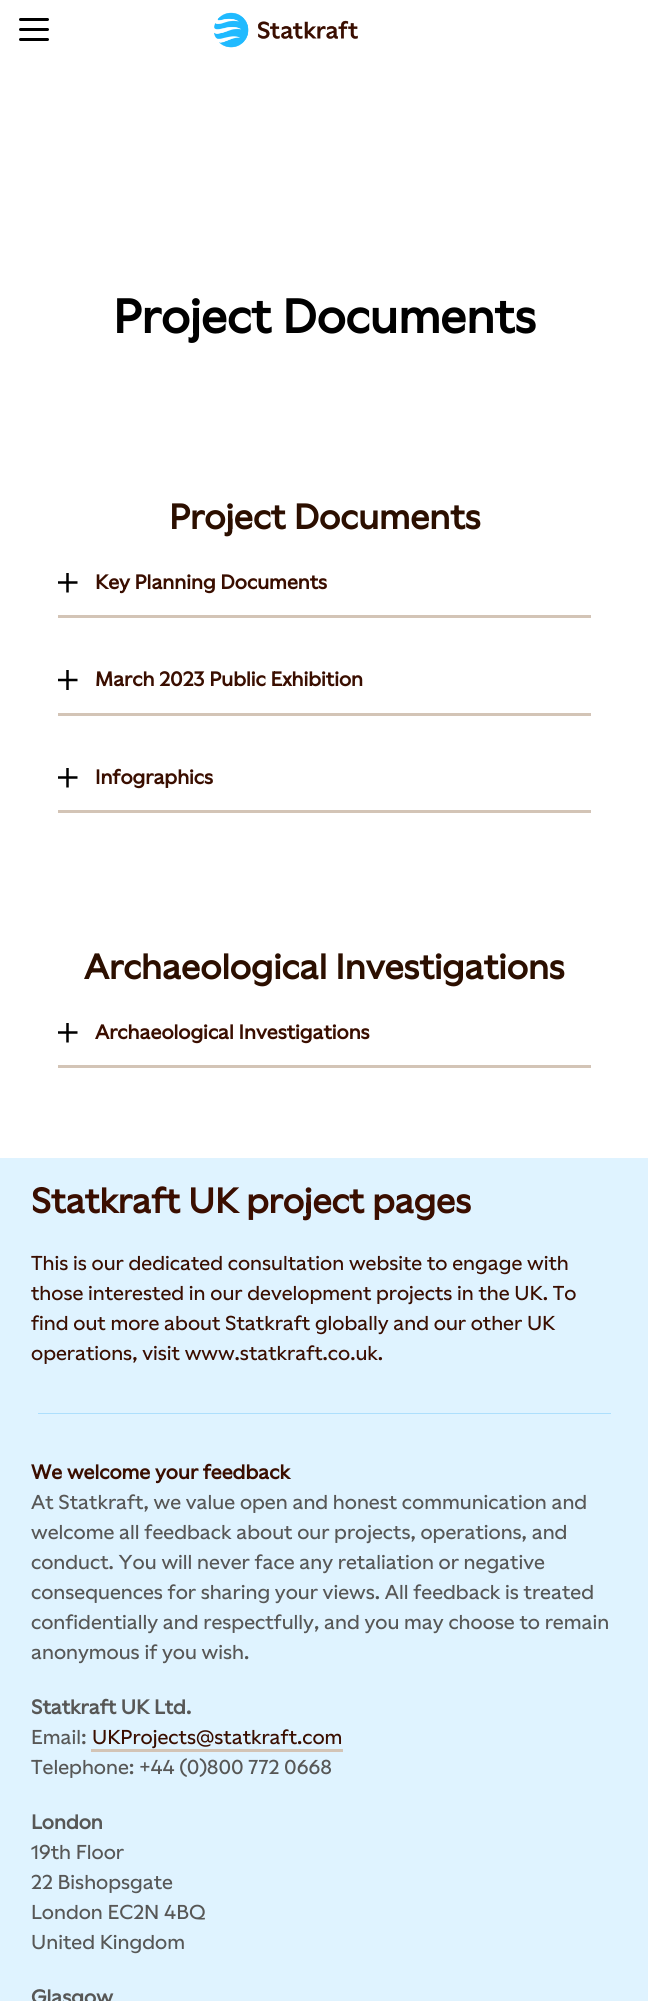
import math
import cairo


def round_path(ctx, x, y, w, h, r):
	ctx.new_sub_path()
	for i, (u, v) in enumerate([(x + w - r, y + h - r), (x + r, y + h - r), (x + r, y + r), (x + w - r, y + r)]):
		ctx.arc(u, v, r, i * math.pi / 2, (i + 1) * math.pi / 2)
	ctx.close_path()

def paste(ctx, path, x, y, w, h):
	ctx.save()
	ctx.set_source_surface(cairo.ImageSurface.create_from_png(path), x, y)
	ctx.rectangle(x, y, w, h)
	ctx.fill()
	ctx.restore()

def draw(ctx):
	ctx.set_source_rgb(1, 1, 1)
	ctx.paint()
	ctx.set_source_rgb(0, 0, 0)
	round_path(ctx, 19, 28, 30, 3, 1.5)
	ctx.fill()
	round_path(ctx, 19, 18, 30, 3, 1.5)
	ctx.fill()
	round_path(ctx, 19, 38, 30, 3, 1.5)
	ctx.fill()
	paste(ctx, 'media/1.png', 214, 12, 144, 36)
	ctx.select_font_face('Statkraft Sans', cairo.FONT_SLANT_NORMAL, cairo.FONT_WEIGHT_BOLD)
	ctx.set_font_size(47.5)
	ctx.move_to(113, 333)
	ctx.show_text('Project Documents')
	ctx.set_font_size(35)
	ctx.set_source_rgb(0.173, 0.059, 0)
	ctx.move_to(169, 529)
	ctx.show_text('Project Documents')
	ctx.set_source_rgb(0.827, 0.769, 0.714)
	ctx.rectangle(58, 615, 533, 3)
	ctx.fill()
	paste(ctx, 'media/2.png', 58, 573, 20, 20)
	ctx.set_font_size(20)
	ctx.set_source_rgb(0.227, 0.055, 0)
	ctx.move_to(95, 589)
	ctx.show_text('Key Planning Documents')
	ctx.set_source_rgb(0.827, 0.769, 0.714)
	ctx.rectangle(58, 713, 533, 3)
	ctx.fill()
	paste(ctx, 'media/3.png', 58, 670, 20, 20)
	ctx.set_source_rgb(0.227, 0.055, 0)
	ctx.move_to(95, 686)
	ctx.show_text('March 2023 Public Exhibition')
	ctx.set_source_rgb(0.827, 0.769, 0.714)
	ctx.rectangle(58, 810, 533, 3)
	ctx.fill()
	paste(ctx, 'media/2.png', 58, 768, 20, 20)
	ctx.set_source_rgb(0.227, 0.055, 0)
	ctx.move_to(95, 784)
	ctx.show_text('Infographics')
	ctx.set_font_size(35)
	ctx.set_source_rgb(0.173, 0.059, 0)
	ctx.move_to(84, 979)
	ctx.show_text('Archaeological Investigations')
	ctx.set_source_rgb(0.827, 0.769, 0.714)
	ctx.rectangle(58, 1065, 533, 3)
	ctx.fill()
	paste(ctx, 'media/2.png', 58, 1023, 20, 20)
	ctx.set_font_size(20)
	ctx.set_source_rgb(0.227, 0.055, 0)
	ctx.move_to(95, 1039)
	ctx.show_text('Archaeological Investigations')
	ctx.set_source_rgb(0.875, 0.953, 1)
	ctx.rectangle(0, 1158, 648, 843)
	ctx.fill()
	ctx.set_font_size(35)
	ctx.set_source_rgb(0.227, 0.055, 0)
	ctx.move_to(31, 1213)
	ctx.show_text('Statkraft UK project pages')
	ctx.select_font_face('Statkraft Sans Medium')
	ctx.set_font_size(20)
	for x, y, s in [
		(31, 1270, 'This is our dedicated consultation website to engage with'),
		(31, 1300, 'those interested in our development projects in the UK. To'),
		(31, 1330, 'find out more about Statkraft globally and our other UK'),
		(31, 1360, 'operations, visit www.statkraft.co.uk.'),
	]:
		ctx.move_to(x, y)
		ctx.show_text(s)
	ctx.set_source_rgb(0.678, 0.875, 0.992)
	ctx.rectangle(38, 1413, 573, 1)
	ctx.fill()
	ctx.select_font_face('Statkraft Sans', cairo.FONT_SLANT_NORMAL, cairo.FONT_WEIGHT_BOLD)
	ctx.set_source_rgb(0.227, 0.055, 0)
	ctx.move_to(31, 1479)
	ctx.show_text('We welcome your feedback')
	ctx.select_font_face('Statkraft Sans Medium')
	ctx.set_source_rgb(0.341, 0.341, 0.337)
	for x, y, s in [
		(31, 1509, 'At Statkraft, we value open and honest communication and'),
		(31, 1539, 'welcome all feedback about our projects, operations, and'),
		(31, 1569, 'conduct. You will never face any retaliation or negative'),
		(31, 1599, 'consequences for sharing your views. All feedback is treated'),
		(31, 1629, 'confidentially and respectfully, and you may choose to remain'),
		(31, 1659, 'anonymous if you wish.'),
	]:
		ctx.move_to(x, y)
		ctx.show_text(s)
	ctx.select_font_face('Statkraft Sans', cairo.FONT_SLANT_NORMAL, cairo.FONT_WEIGHT_BOLD)
	ctx.move_to(31, 1714)
	ctx.show_text('Statkraft UK Ltd.')
	ctx.select_font_face('Statkraft Sans Medium')
	ctx.move_to(31, 1744)
	ctx.show_text('Email:')
	ctx.set_source_rgb(0.227, 0.055, 0)
	ctx.move_to(92, 1744)
	ctx.show_text('UKProjects@statkraft.com')
	ctx.set_source_rgb(0.827, 0.769, 0.714)
	ctx.rectangle(91, 1749, 252, 3)
	ctx.fill()
	ctx.set_source_rgb(0.341, 0.341, 0.337)
	ctx.move_to(31, 1774)
	ctx.show_text('Telephone: +44 (0)800 772 0668')
	ctx.select_font_face('Statkraft Sans', cairo.FONT_SLANT_NORMAL, cairo.FONT_WEIGHT_BOLD)
	ctx.move_to(31, 1829)
	ctx.show_text('London')
	ctx.select_font_face('Statkraft Sans Medium')
	for x, y, s in [
		(31, 1859, '19th Floor'),
		(31, 1889, '22 Bishopsgate'),
		(31, 1919, 'London EC2N 4BQ'),
		(31, 1949, 'United Kingdom'),
	]:
		ctx.move_to(x, y)
		ctx.show_text(s)
	ctx.select_font_face('Statkraft Sans', cairo.FONT_SLANT_NORMAL, cairo.FONT_WEIGHT_BOLD)
	ctx.move_to(31, 2004)
	ctx.show_text('Glasgow')


surface = cairo.ImageSurface(cairo.FORMAT_RGB24, 648, 2001)
ctx = cairo.Context(surface)
options = cairo.FontOptions()
options.set_hint_metrics(cairo.HINT_METRICS_OFF)
options.set_hint_style(cairo.HINT_STYLE_NONE)
ctx.set_font_options(options)
ctx.set_miter_limit(4)
draw(ctx)
surface.write_to_png('image.png')
